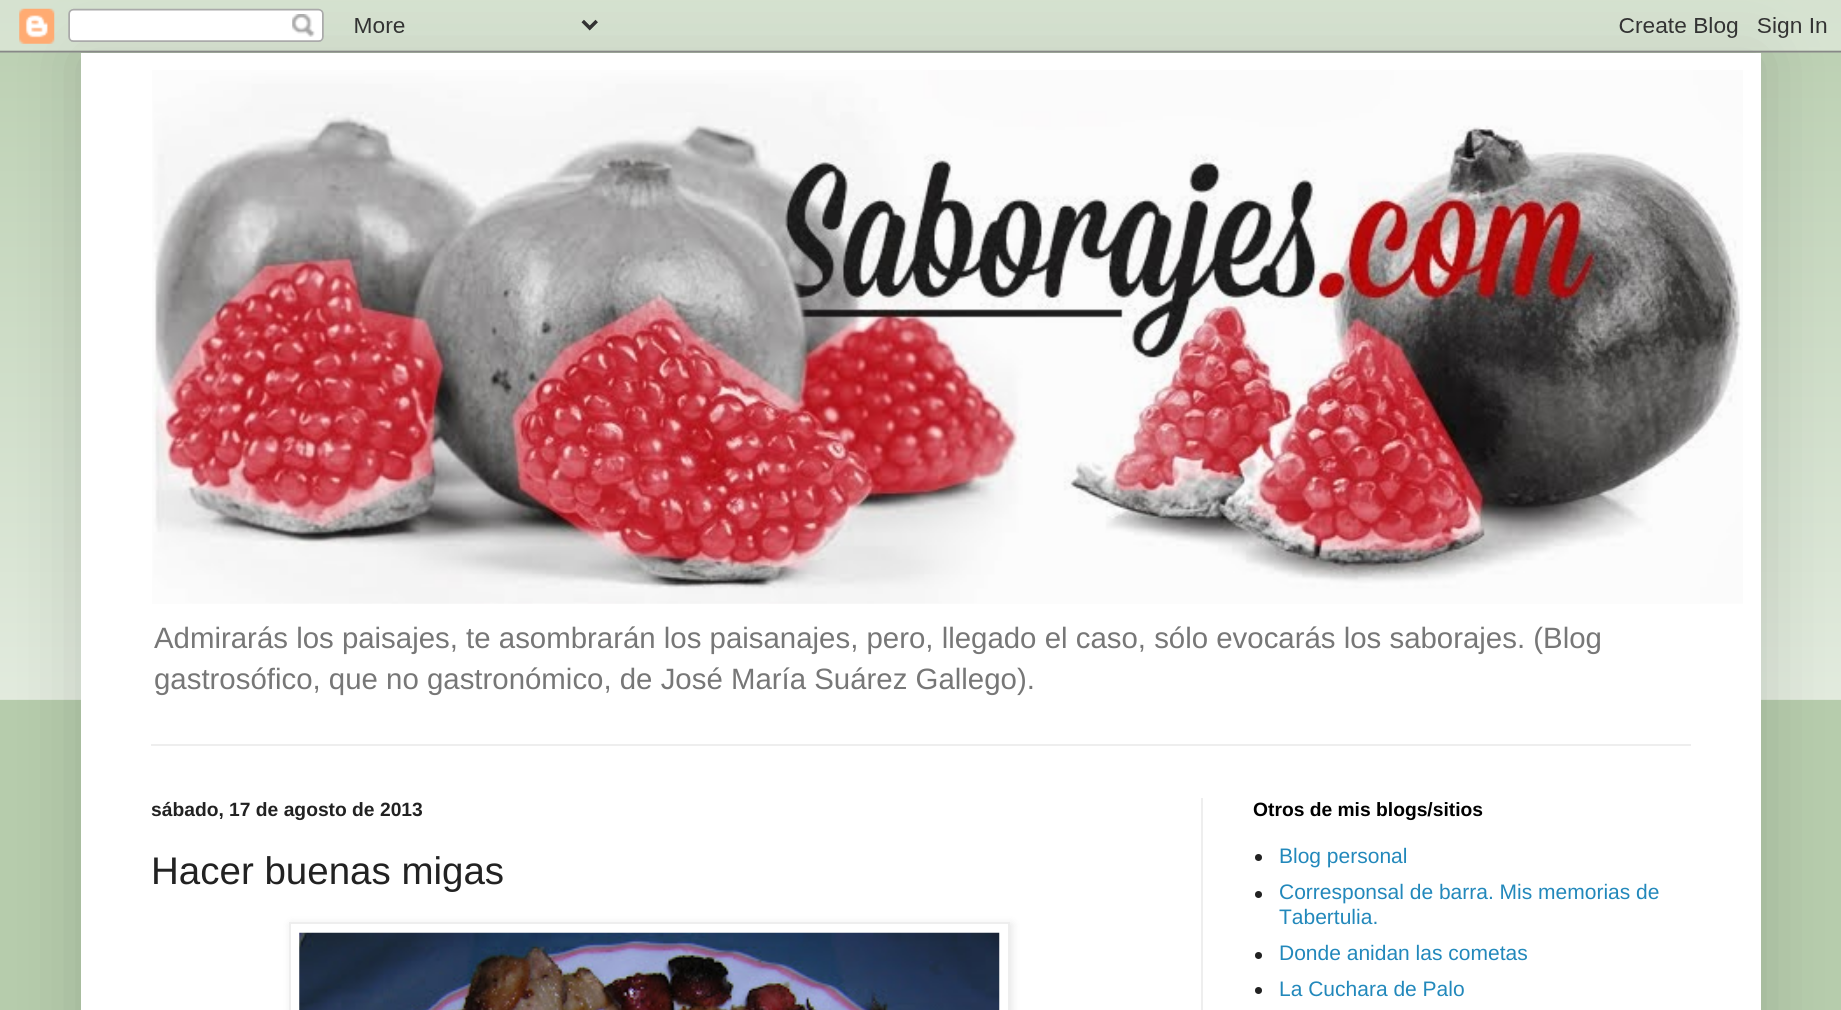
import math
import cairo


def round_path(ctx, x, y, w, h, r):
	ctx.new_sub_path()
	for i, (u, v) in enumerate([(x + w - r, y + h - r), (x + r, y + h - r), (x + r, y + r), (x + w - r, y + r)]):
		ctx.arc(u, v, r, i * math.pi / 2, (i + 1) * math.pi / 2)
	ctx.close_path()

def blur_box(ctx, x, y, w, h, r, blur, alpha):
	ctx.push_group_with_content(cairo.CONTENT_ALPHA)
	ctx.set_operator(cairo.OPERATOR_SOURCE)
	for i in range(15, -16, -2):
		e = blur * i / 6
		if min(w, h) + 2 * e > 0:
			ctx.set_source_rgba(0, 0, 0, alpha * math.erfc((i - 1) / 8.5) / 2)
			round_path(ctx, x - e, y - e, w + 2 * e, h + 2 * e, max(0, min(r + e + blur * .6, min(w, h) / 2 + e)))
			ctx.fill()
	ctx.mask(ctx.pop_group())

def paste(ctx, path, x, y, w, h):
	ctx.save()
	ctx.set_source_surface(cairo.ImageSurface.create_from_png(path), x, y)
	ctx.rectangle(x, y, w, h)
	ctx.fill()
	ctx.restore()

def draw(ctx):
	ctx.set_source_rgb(0.714, 0.8, 0.675)
	ctx.paint()
	paste(ctx, 'media/1.png', 0, 0, 1841, 700)
	ctx.set_source_rgb(0, 0, 0)
	blur_box(ctx, 81, 53, 1680, 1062, 0, 35, 0.15)
	paste(ctx, 'media/2.png', 0, 0, 1841, 53)
	ctx.set_source_rgb(1, 1, 1)
	ctx.rectangle(81, 53, 1680, 957)
	ctx.fill()
	paste(ctx, 'media/3.png', 152, 70, 1591, 534)
	ctx.select_font_face('Liberation Sans')
	ctx.set_font_size(29.4)
	ctx.set_source_rgb(0.467, 0.467, 0.467)
	ctx.move_to(154, 648)
	ctx.show_text('Admirarás los paisajes, te asombrarán los paisanajes, pero, llegado el caso, sólo evocarás los saborajes. (Blog')
	ctx.move_to(154, 689)
	ctx.show_text('gastrosófico, que no gastronómico, de José María Suárez Gallego).')
	ctx.set_source_rgb(0.933, 0.933, 0.933)
	ctx.rectangle(151, 744, 1540, 2)
	ctx.fill()
	ctx.rectangle(1201, 798, 2, 212)
	ctx.fill()
	ctx.select_font_face('Liberation Sans', cairo.FONT_SLANT_NORMAL, cairo.FONT_WEIGHT_BOLD)
	ctx.set_font_size(19.25)
	ctx.set_source_rgb(0.133, 0.133, 0.133)
	ctx.move_to(151, 816)
	ctx.show_text('sábado, 17 de agosto de 2013')
	ctx.select_font_face('Liberation Sans')
	ctx.set_font_size(38.5)
	ctx.move_to(151, 884)
	ctx.show_text('Hacer buenas migas')
	ctx.set_source_rgb(0, 0, 0)
	blur_box(ctx, 291, 924, 721, 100, 0, 4.5, 0.1)
	ctx.set_source_rgb(1, 1, 1)
	ctx.rectangle(290, 923, 719, 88)
	ctx.fill_preserve()
	ctx.set_source_rgb(0.933, 0.933, 0.933)
	ctx.stroke()
	paste(ctx, 'media/4.png', 299, 932, 701, 78)
	ctx.select_font_face('Liberation Sans', cairo.FONT_SLANT_NORMAL, cairo.FONT_WEIGHT_BOLD)
	ctx.set_font_size(19.25)
	ctx.set_source_rgb(0, 0, 0)
	ctx.move_to(1253, 816)
	ctx.show_text('Otros de mis blogs/sitios')
	ctx.set_source_rgb(0.133, 0.133, 0.133)
	ctx.new_path()
	ctx.arc(1258.5, 857.5, 3.5, 0, 2 * math.pi)
	ctx.fill()
	ctx.select_font_face('Liberation Sans')
	ctx.set_font_size(21)
	ctx.set_source_rgb(0.133, 0.533, 0.733)
	ctx.move_to(1279, 863)
	ctx.show_text('Blog personal')
	ctx.set_source_rgb(0.133, 0.133, 0.133)
	ctx.new_path()
	ctx.arc(1258.5, 894.5, 3.5, 0, 2 * math.pi)
	ctx.fill()
	ctx.set_source_rgb(0.133, 0.533, 0.733)
	ctx.move_to(1279, 899)
	ctx.show_text('Corresponsal de barra. Mis memorias de')
	ctx.move_to(1279, 924)
	ctx.show_text('Tabertulia.')
	ctx.set_source_rgb(0.133, 0.133, 0.133)
	ctx.new_path()
	ctx.arc(1258.5, 955.5, 3.5, 0, 2 * math.pi)
	ctx.fill()
	ctx.set_source_rgb(0.133, 0.533, 0.733)
	ctx.move_to(1279, 960)
	ctx.show_text('Donde anidan las cometas')
	ctx.set_source_rgb(0.133, 0.133, 0.133)
	ctx.new_path()
	ctx.arc(1258.5, 990.5, 3.5, 0, 2 * math.pi)
	ctx.fill()
	ctx.set_source_rgb(0.133, 0.533, 0.733)
	ctx.move_to(1279, 996)
	ctx.show_text('La Cuchara de Palo')


surface = cairo.ImageSurface(cairo.FORMAT_RGB24, 1841, 1010)
ctx = cairo.Context(surface)
options = cairo.FontOptions()
options.set_hint_metrics(cairo.HINT_METRICS_OFF)
options.set_hint_style(cairo.HINT_STYLE_NONE)
ctx.set_font_options(options)
ctx.set_miter_limit(4)
draw(ctx)
surface.write_to_png('image.png')
